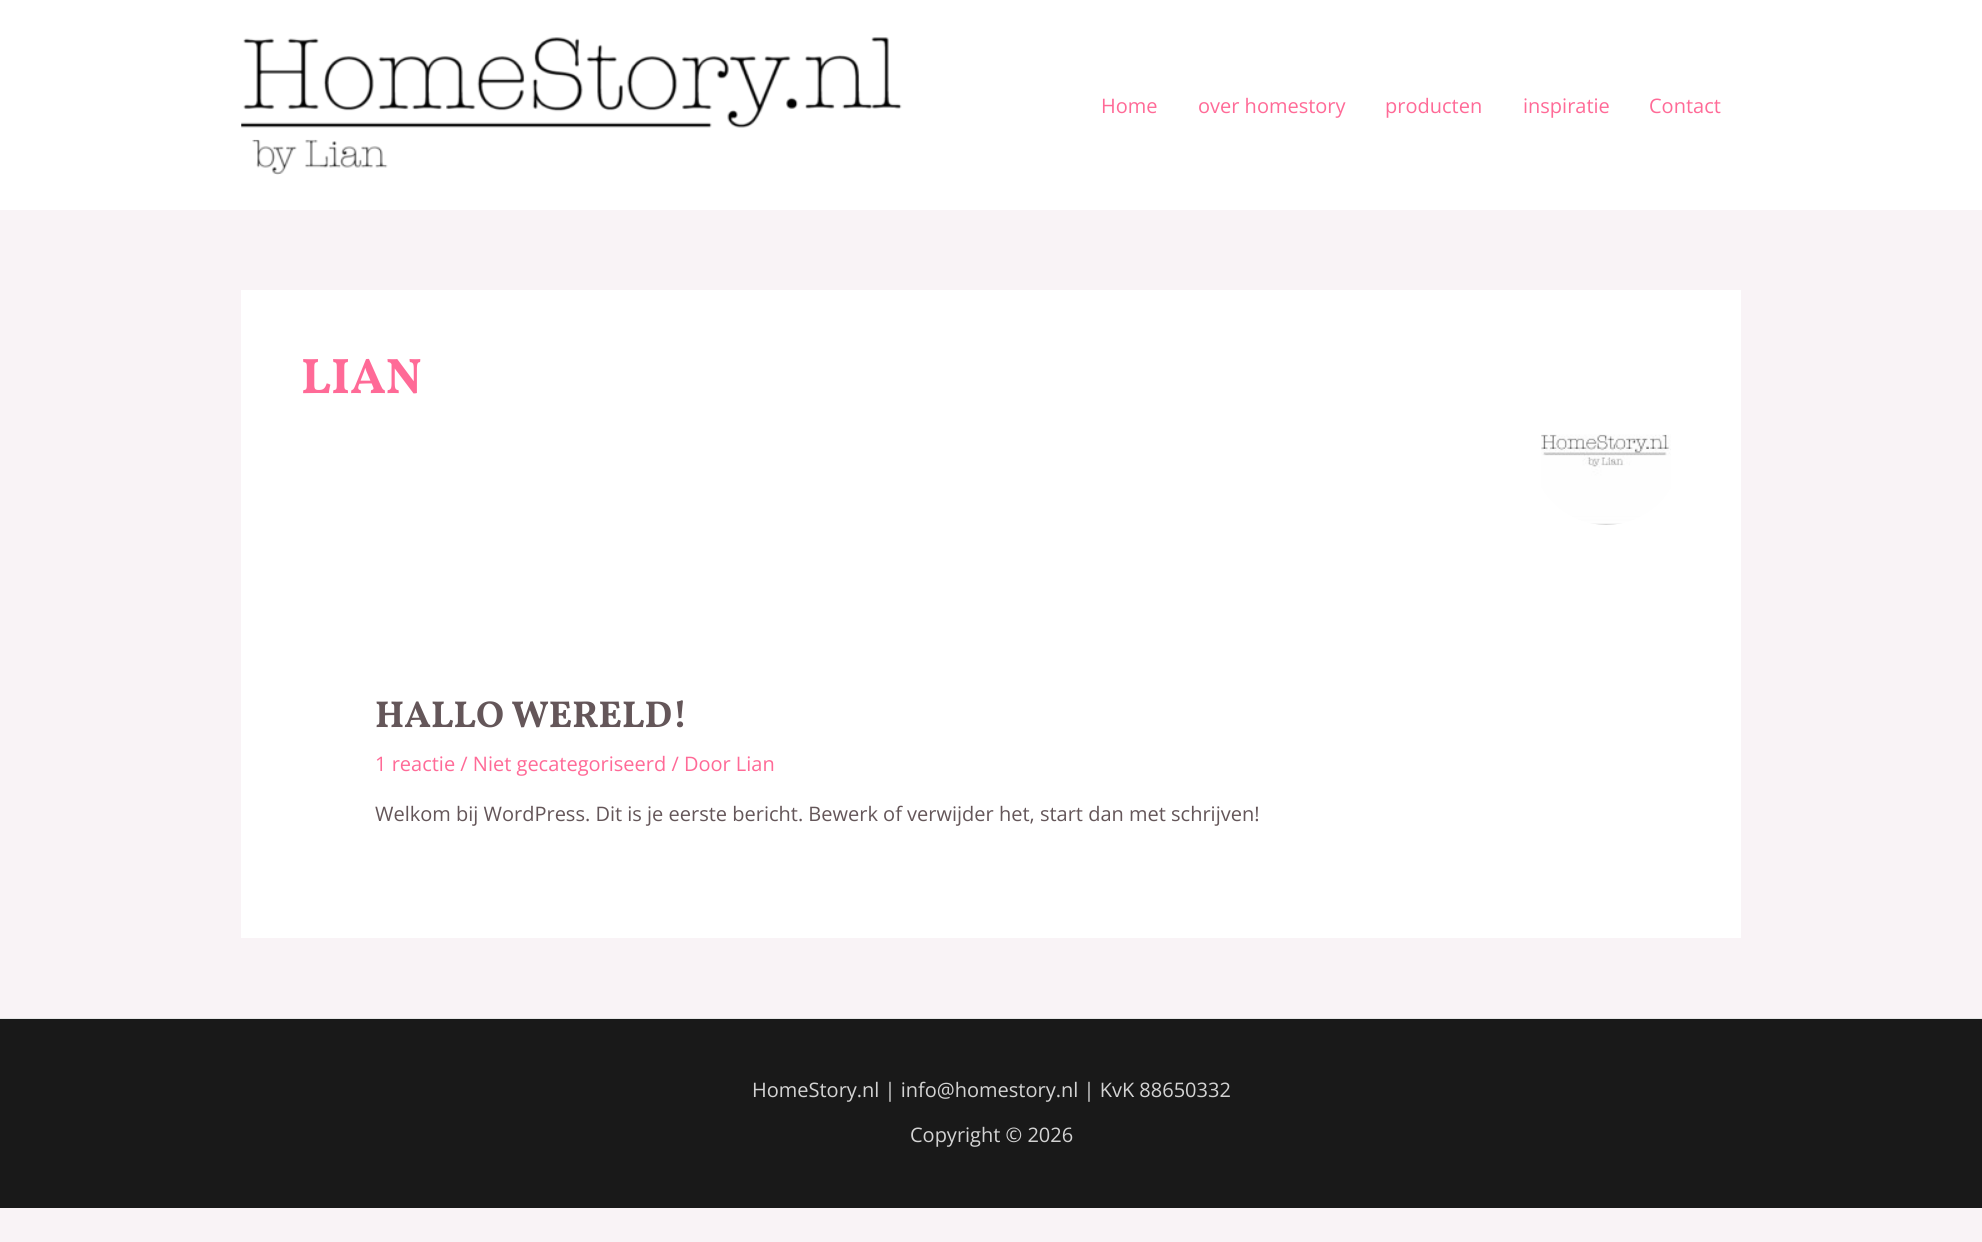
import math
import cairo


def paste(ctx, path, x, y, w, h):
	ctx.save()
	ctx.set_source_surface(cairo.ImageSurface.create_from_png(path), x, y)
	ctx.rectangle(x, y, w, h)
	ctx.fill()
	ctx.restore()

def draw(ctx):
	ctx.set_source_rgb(0.973, 0.953, 0.961)
	ctx.paint()
	ctx.set_source_rgb(1, 1, 1)
	ctx.rectangle(0, 0, 1982, 210)
	ctx.fill()
	paste(ctx, 'media/1.png', 241, 37, 661, 138)
	ctx.select_font_face('Open Sans')
	ctx.set_font_size(20)
	ctx.set_source_rgb(1, 0.416, 0.592)
	for x, y, s in [
		(1101, 113, 'Home'),
		(1198, 113, 'over homestory'),
		(1385, 113, 'producten'),
		(1523, 113, 'inspiratie'),
		(1649, 113, 'Contact'),
	]:
		ctx.move_to(x, y)
		ctx.show_text(s)
	ctx.set_source_rgb(1, 1, 1)
	ctx.rectangle(241, 290, 1500, 648)
	ctx.fill()
	ctx.select_font_face('Vollkorn', cairo.FONT_SLANT_NORMAL, cairo.FONT_WEIGHT_BOLD)
	ctx.set_font_size(50)
	ctx.set_source_rgb(1, 0.416, 0.592)
	ctx.move_to(301, 393)
	ctx.show_text('LIAN')
	paste(ctx, 'media/2.png', 1541, 434, 130, 91)
	ctx.set_font_size(37.5)
	ctx.set_source_rgb(0.392, 0.337, 0.349)
	ctx.move_to(375, 727)
	ctx.show_text('HALLO WERELD!')
	ctx.select_font_face('Open Sans')
	ctx.set_font_size(20)
	ctx.set_source_rgb(1, 0.416, 0.592)
	ctx.move_to(375, 771)
	ctx.show_text('1 reactie / Niet gecategoriseerd / Door Lian')
	ctx.set_source_rgb(0.392, 0.337, 0.349)
	ctx.move_to(375, 821)
	ctx.show_text('Welkom bij WordPress. Dit is je eerste bericht. Bewerk of verwijder het, start dan met schrijven!')
	ctx.set_source_rgb(0.098, 0.098, 0.098)
	ctx.rectangle(0, 1019, 1982, 189)
	ctx.fill()
	ctx.set_source_rgb(0.902, 0.902, 0.902)
	ctx.rectangle(0, 1018, 1982, 1)
	ctx.fill()
	ctx.set_source_rgb(0.827, 0.827, 0.827)
	ctx.move_to(752, 1097)
	ctx.show_text('HomeStory.nl | info@homestory.nl | KvK 88650332')
	ctx.move_to(910, 1142)
	ctx.show_text('Copyright © 2026')


surface = cairo.ImageSurface(cairo.FORMAT_RGB24, 1982, 1242)
ctx = cairo.Context(surface)
options = cairo.FontOptions()
options.set_hint_metrics(cairo.HINT_METRICS_OFF)
options.set_hint_style(cairo.HINT_STYLE_NONE)
ctx.set_font_options(options)
ctx.set_miter_limit(4)
draw(ctx)
surface.write_to_png('image.png')
